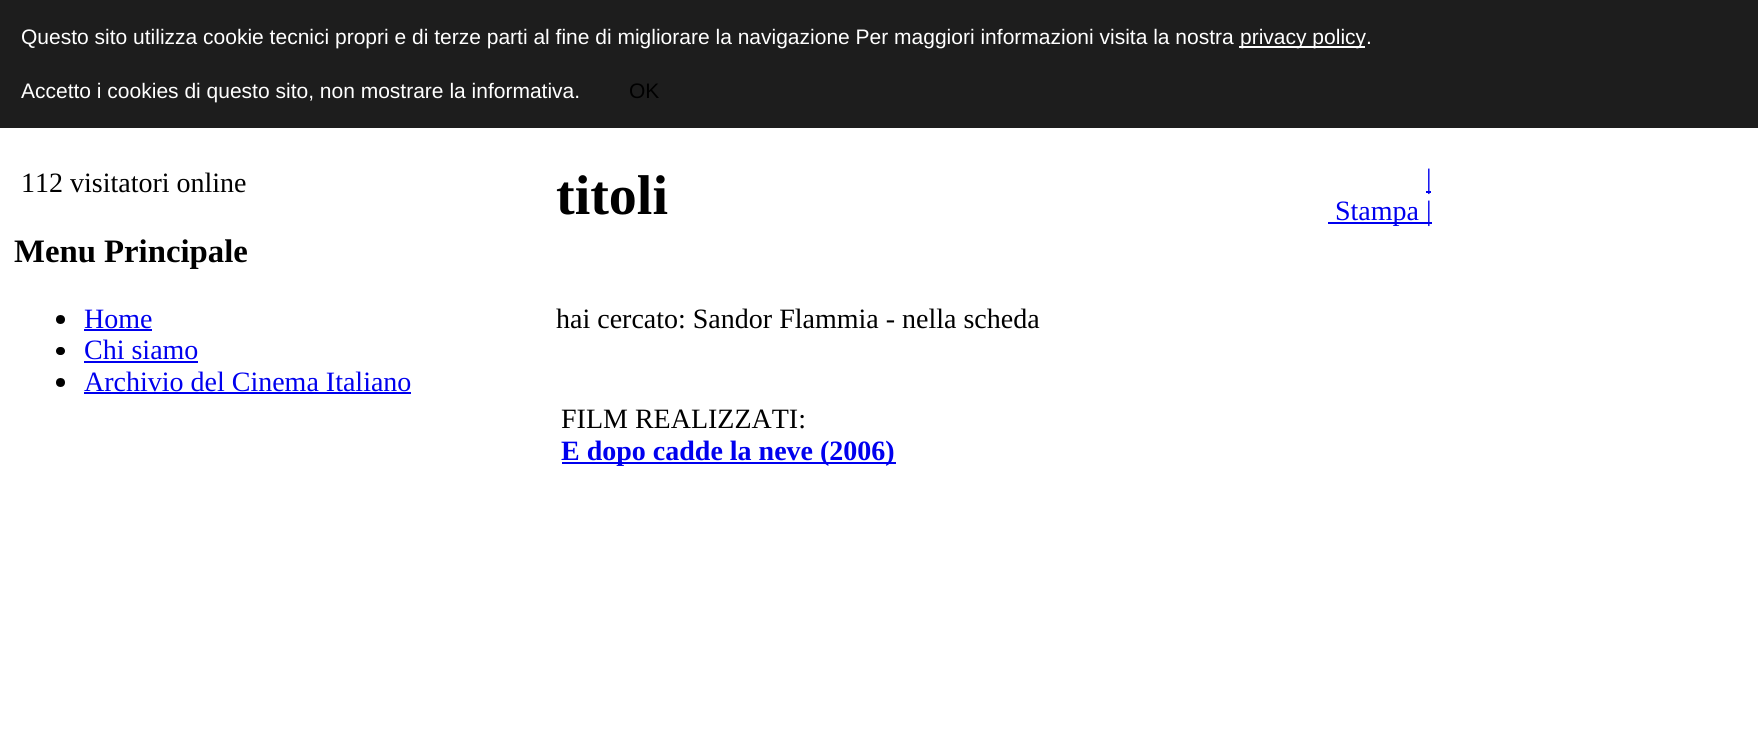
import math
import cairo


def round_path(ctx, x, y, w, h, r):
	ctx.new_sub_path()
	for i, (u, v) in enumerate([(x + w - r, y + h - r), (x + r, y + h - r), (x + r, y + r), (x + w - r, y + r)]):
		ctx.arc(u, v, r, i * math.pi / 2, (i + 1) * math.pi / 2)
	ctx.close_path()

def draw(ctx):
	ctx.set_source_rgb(1, 1, 1)
	ctx.paint()
	ctx.set_source_rgb(0.114, 0.114, 0.114)
	ctx.rectangle(0, 0, 1758, 128)
	ctx.fill()
	ctx.select_font_face('Liberation Sans')
	ctx.set_font_size(21)
	ctx.set_source_rgb(1, 1, 1)
	ctx.move_to(21, 44)
	ctx.show_text('Questo sito utilizza cookie tecnici propri e di terze parti al fine di migliorare la navigazione Per maggiori informazioni visita la nostra')
	ctx.rectangle(1239, 46, 126, 2)
	ctx.fill()
	ctx.move_to(1240, 44)
	ctx.show_text('privacy policy.')
	ctx.move_to(21, 98)
	ctx.show_text('Accetto i cookies di questo sito, non mostrare la informativa.')
	ctx.set_source_rgb(0, 0, 0)
	ctx.move_to(629, 98)
	ctx.show_text('OK')
	ctx.select_font_face('Liberation Serif')
	ctx.set_font_size(28)
	ctx.move_to(21, 192)
	ctx.show_text('112 visitatori online')
	ctx.select_font_face('Liberation Serif', cairo.FONT_SLANT_NORMAL, cairo.FONT_WEIGHT_BOLD)
	ctx.set_font_size(32.75)
	ctx.move_to(14, 262)
	ctx.show_text('Menu Principale')
	ctx.new_path()
	ctx.arc(60.5, 319.5, 4.5, 0, 2 * math.pi)
	ctx.fill()
	ctx.select_font_face('Liberation Serif')
	ctx.set_font_size(28)
	ctx.set_source_rgb(0, 0, 0.933)
	ctx.move_to(84, 328)
	ctx.show_text('Home')
	ctx.rectangle(84, 329, 68, 2)
	ctx.fill()
	ctx.set_source_rgb(0, 0, 0)
	round_path(ctx, 56, 347, 9, 8, 4)
	ctx.fill()
	ctx.set_source_rgb(0, 0, 0.933)
	ctx.move_to(84, 359)
	ctx.show_text('Chi siamo')
	ctx.rectangle(84, 361, 114, 2)
	ctx.fill()
	ctx.set_source_rgb(0, 0, 0)
	ctx.arc(60.5, 382.5, 4.5, 0, 2 * math.pi)
	ctx.fill()
	ctx.set_source_rgb(0, 0, 0.933)
	ctx.move_to(84, 391)
	ctx.show_text('Archivio del Cinema Italiano')
	ctx.rectangle(84, 392, 327, 2)
	ctx.fill()
	ctx.select_font_face('Liberation Serif', cairo.FONT_SLANT_NORMAL, cairo.FONT_WEIGHT_BOLD)
	ctx.set_font_size(56)
	ctx.set_source_rgb(0, 0, 0)
	ctx.move_to(556, 214)
	ctx.show_text('titoli')
	ctx.set_source_rgb(0, 0, 0.933)
	ctx.rectangle(1426, 191, 5, 2)
	ctx.fill()
	ctx.select_font_face('Liberation Serif')
	ctx.set_font_size(28)
	ctx.move_to(1426, 188)
	ctx.show_text('|')
	ctx.rectangle(1328, 222, 104, 2)
	ctx.fill()
	ctx.move_to(1335, 220)
	ctx.show_text('Stampa |')
	ctx.set_source_rgb(0, 0, 0)
	ctx.move_to(556, 328)
	ctx.show_text('hai cercato: Sandor Flammia - nella scheda')
	ctx.move_to(561, 428)
	ctx.show_text('FILM REALIZZATI:')
	ctx.set_source_rgb(0, 0, 0.933)
	ctx.rectangle(562, 462, 334, 2)
	ctx.fill()
	ctx.select_font_face('Liberation Serif', cairo.FONT_SLANT_NORMAL, cairo.FONT_WEIGHT_BOLD)
	ctx.move_to(561, 460)
	ctx.show_text('E dopo cadde la neve (2006)')


surface = cairo.ImageSurface(cairo.FORMAT_RGB24, 1758, 745)
ctx = cairo.Context(surface)
options = cairo.FontOptions()
options.set_hint_metrics(cairo.HINT_METRICS_OFF)
options.set_hint_style(cairo.HINT_STYLE_NONE)
ctx.set_font_options(options)
ctx.set_miter_limit(4)
draw(ctx)
surface.write_to_png('image.png')
